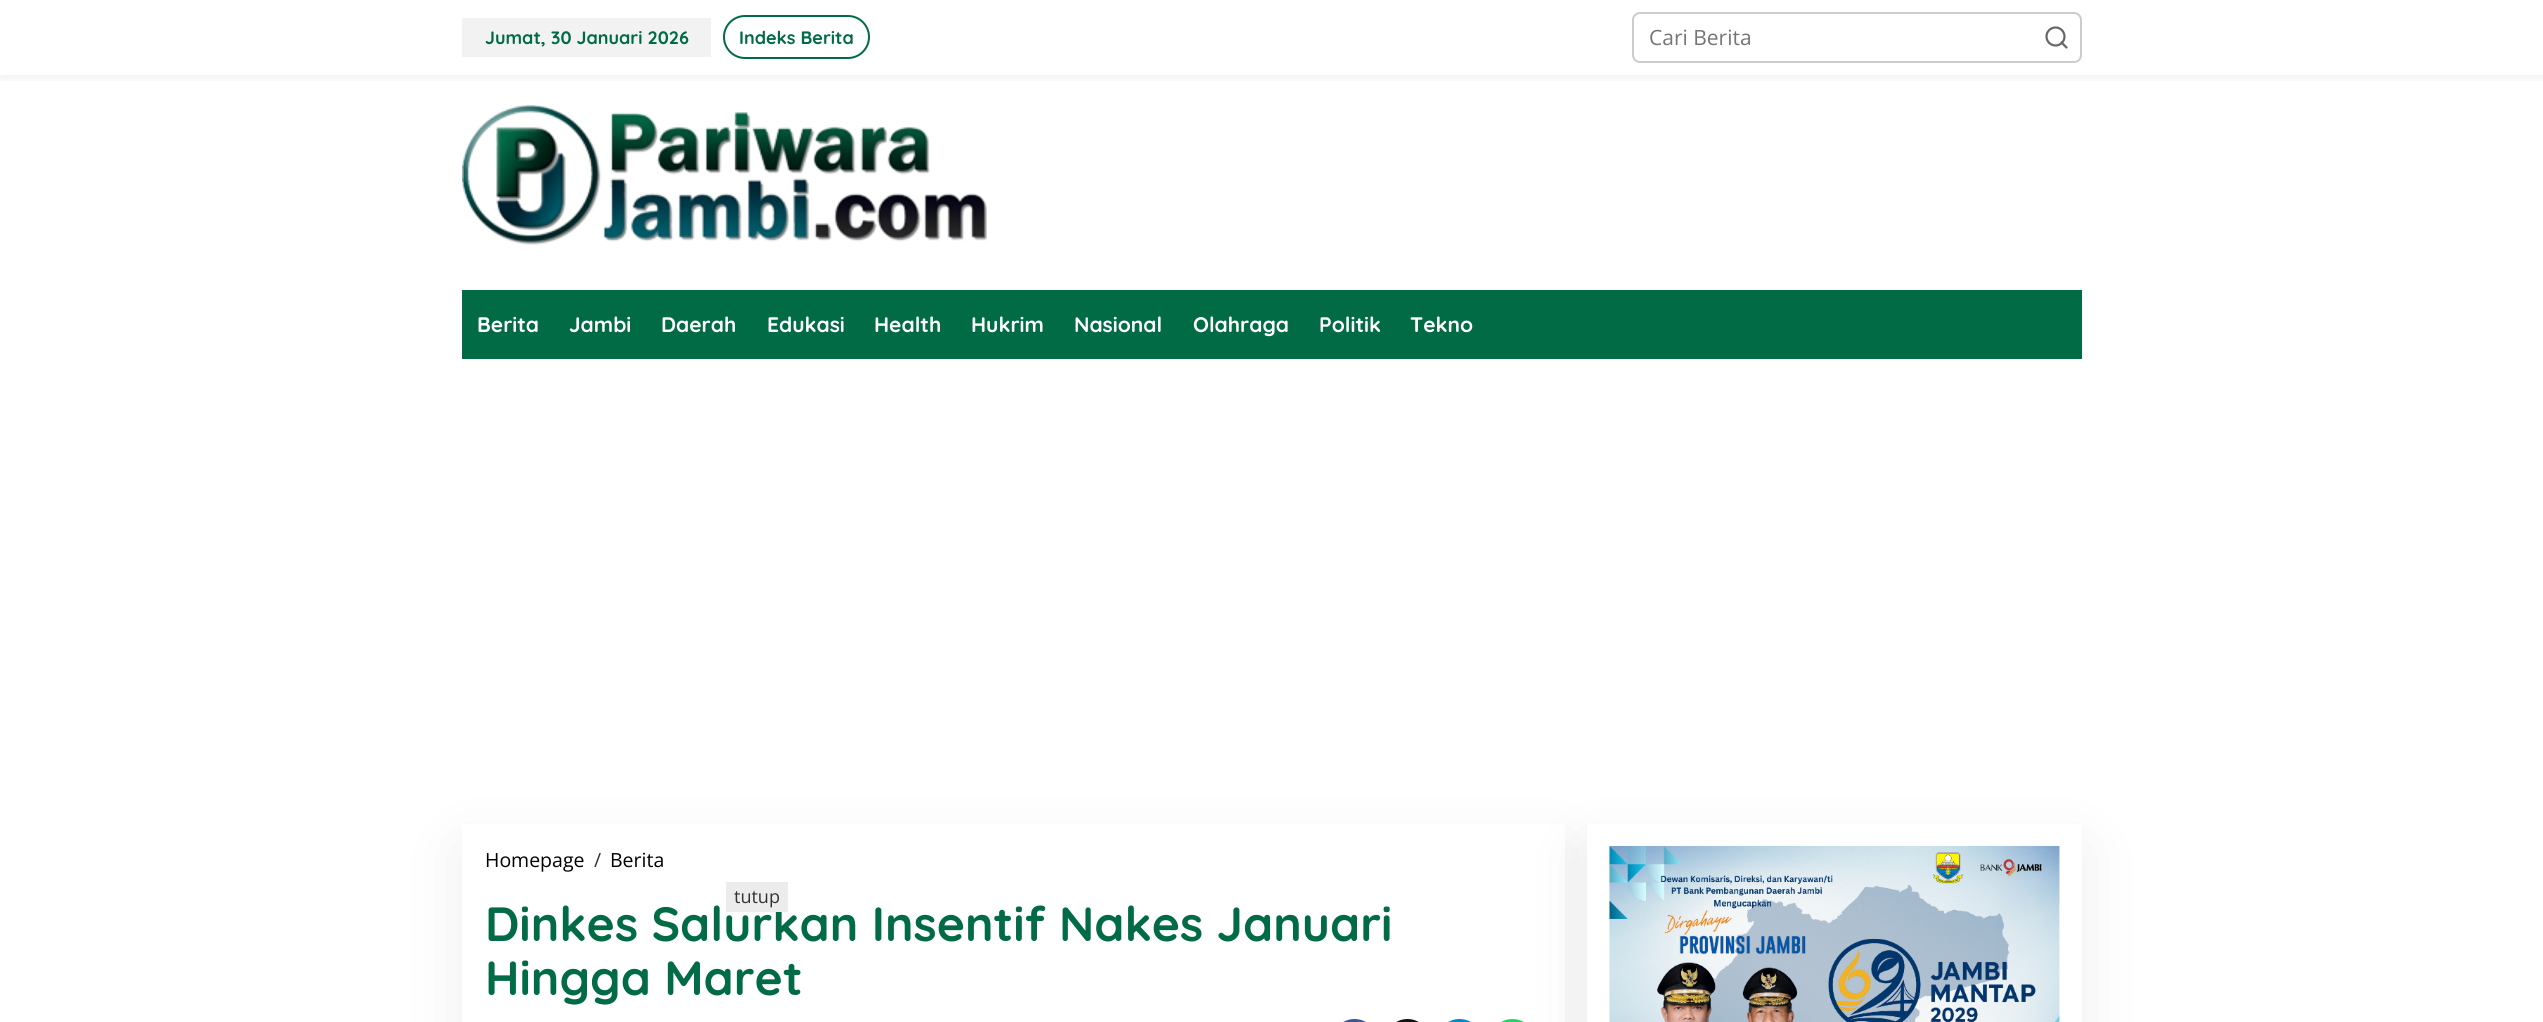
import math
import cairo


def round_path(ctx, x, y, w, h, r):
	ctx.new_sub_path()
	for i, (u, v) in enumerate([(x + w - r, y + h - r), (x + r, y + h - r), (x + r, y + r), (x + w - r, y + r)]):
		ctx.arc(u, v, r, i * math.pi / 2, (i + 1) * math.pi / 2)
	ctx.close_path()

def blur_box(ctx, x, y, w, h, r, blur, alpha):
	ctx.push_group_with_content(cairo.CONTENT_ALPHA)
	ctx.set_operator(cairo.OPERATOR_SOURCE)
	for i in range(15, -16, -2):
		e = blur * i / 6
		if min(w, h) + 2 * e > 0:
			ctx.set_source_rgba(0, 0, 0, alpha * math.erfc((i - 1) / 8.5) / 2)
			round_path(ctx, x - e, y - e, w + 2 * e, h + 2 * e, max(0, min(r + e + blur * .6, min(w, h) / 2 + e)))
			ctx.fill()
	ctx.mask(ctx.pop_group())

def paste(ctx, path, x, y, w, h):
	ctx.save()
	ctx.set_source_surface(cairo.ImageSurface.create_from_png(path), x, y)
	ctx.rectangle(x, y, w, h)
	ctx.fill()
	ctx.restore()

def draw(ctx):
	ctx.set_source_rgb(1, 1, 1)
	ctx.paint()
	ctx.save()
	ctx.rectangle(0, 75, 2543, 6)
	ctx.clip()
	ctx.set_source_rgb(0, 0, 0)
	blur_box(ctx, 0, 0, 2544, 75, 0, 7.5, 0.1)
	ctx.restore()
	ctx.set_source_rgb(0.949, 0.949, 0.949)
	ctx.rectangle(462, 18, 249, 39)
	ctx.fill()
	ctx.select_font_face('Quicksand', cairo.FONT_SLANT_NORMAL, cairo.FONT_WEIGHT_BOLD)
	ctx.set_font_size(18)
	ctx.set_source_rgb(0, 0.42, 0.267)
	ctx.move_to(485, 44)
	ctx.show_text('Jumat, 30 Januari 2026')
	round_path(ctx, 724, 16, 145, 42, 21)
	ctx.stroke()
	ctx.move_to(739, 44)
	ctx.show_text('Indeks Berita')
	round_path(ctx, 1633, 13, 448, 49, 7)
	ctx.set_source_rgb(0.8, 0.8, 0.8)
	ctx.stroke()
	ctx.select_font_face('Open Sans')
	ctx.set_font_size(21)
	ctx.set_source_rgb(0.459, 0.459, 0.459)
	ctx.move_to(1649, 45)
	ctx.show_text('Cari Berita')
	ctx.new_path()
	ctx.arc(2055.5, 36.5, 9, 0, 2 * math.pi)
	ctx.set_source_rgb(0.4, 0.4, 0.4)
	ctx.set_line_width(2.2)
	ctx.stroke()
	ctx.new_path()
	ctx.move_to(2066.5, 47.5)
	ctx.line_to(2061.5, 42.5)
	ctx.set_line_cap(cairo.LINE_CAP_ROUND)
	ctx.set_line_join(cairo.LINE_JOIN_ROUND)
	ctx.stroke()
	paste(ctx, 'media/1.png', 462, 105, 525, 140)
	ctx.set_source_rgb(0, 0.42, 0.267)
	ctx.rectangle(462, 290, 1620, 69)
	ctx.fill()
	ctx.select_font_face('Quicksand', cairo.FONT_SLANT_NORMAL, cairo.FONT_WEIGHT_BOLD)
	ctx.set_source_rgb(1, 1, 1)
	for x, y, s in [
		(477, 332, 'Berita'),
		(569, 332, 'Jambi'),
		(661, 332, 'Daerah'),
		(767, 332, 'Edukasi'),
		(874, 332, 'Health'),
		(971, 332, 'Hukrim'),
		(1074, 332, 'Nasional'),
		(1193, 332, 'Olahraga'),
		(1319, 332, 'Politik'),
		(1410, 332, 'Tekno'),
	]:
		ctx.move_to(x, y)
		ctx.show_text(s)
	ctx.set_source_rgb(0, 0, 0)
	blur_box(ctx, 462, 848, 1103, 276, 0, 34, 0.07)
	ctx.set_source_rgb(1, 1, 1)
	ctx.rectangle(462, 824, 1103, 198)
	ctx.fill()
	ctx.select_font_face('Open Sans')
	ctx.set_font_size(19.5)
	ctx.set_source_rgb(0, 0, 0)
	ctx.move_to(485, 867)
	ctx.show_text('Homepage')
	ctx.set_source_rgb(0.196, 0.196, 0.2)
	ctx.move_to(594, 867)
	ctx.show_text('/')
	ctx.set_source_rgb(0, 0, 0)
	ctx.move_to(610, 867)
	ctx.show_text('Berita')
	ctx.select_font_face('Quicksand', cairo.FONT_SLANT_NORMAL, cairo.FONT_WEIGHT_BOLD)
	ctx.set_font_size(48)
	ctx.set_source_rgb(0, 0.42, 0.267)
	ctx.move_to(485, 941)
	ctx.show_text('Dinkes Salurkan Insentif Nakes Januari')
	ctx.move_to(485, 995)
	ctx.show_text('Hingga Maret')
	ctx.set_source_rgb(0.231, 0.349, 0.596)
	round_path(ctx, 1332, 1019, 45, 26, 22.5)
	ctx.fill()
	ctx.set_source_rgb(0.071, 0.071, 0.071)
	round_path(ctx, 1385, 1019, 45, 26, 22.5)
	ctx.fill()
	ctx.set_source_rgb(0, 0.533, 0.8)
	round_path(ctx, 1437, 1019, 45, 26, 22.5)
	ctx.fill()
	ctx.set_source_rgb(0.145, 0.827, 0.4)
	round_path(ctx, 1490, 1019, 45, 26, 22.5)
	ctx.fill()
	ctx.set_source_rgb(0, 0, 0)
	blur_box(ctx, 1587, 848, 495, 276, 0, 34, 0.07)
	ctx.set_source_rgb(1, 1, 1)
	ctx.rectangle(1587, 824, 495, 198)
	ctx.fill()
	paste(ctx, 'media/2.png', 1609, 846, 451, 176)
	ctx.set_source_rgb(0.922, 0.922, 0.922)
	ctx.rectangle(726, 882, 62, 30)
	ctx.fill()
	ctx.select_font_face('Open Sans')
	ctx.set_font_size(18)
	ctx.set_source_rgb(0.196, 0.196, 0.2)
	ctx.move_to(734, 903)
	ctx.show_text('tutup')


surface = cairo.ImageSurface(cairo.FORMAT_RGB24, 2543, 1022)
ctx = cairo.Context(surface)
options = cairo.FontOptions()
options.set_hint_metrics(cairo.HINT_METRICS_OFF)
options.set_hint_style(cairo.HINT_STYLE_NONE)
ctx.set_font_options(options)
ctx.set_miter_limit(4)
draw(ctx)
surface.write_to_png('image.png')
